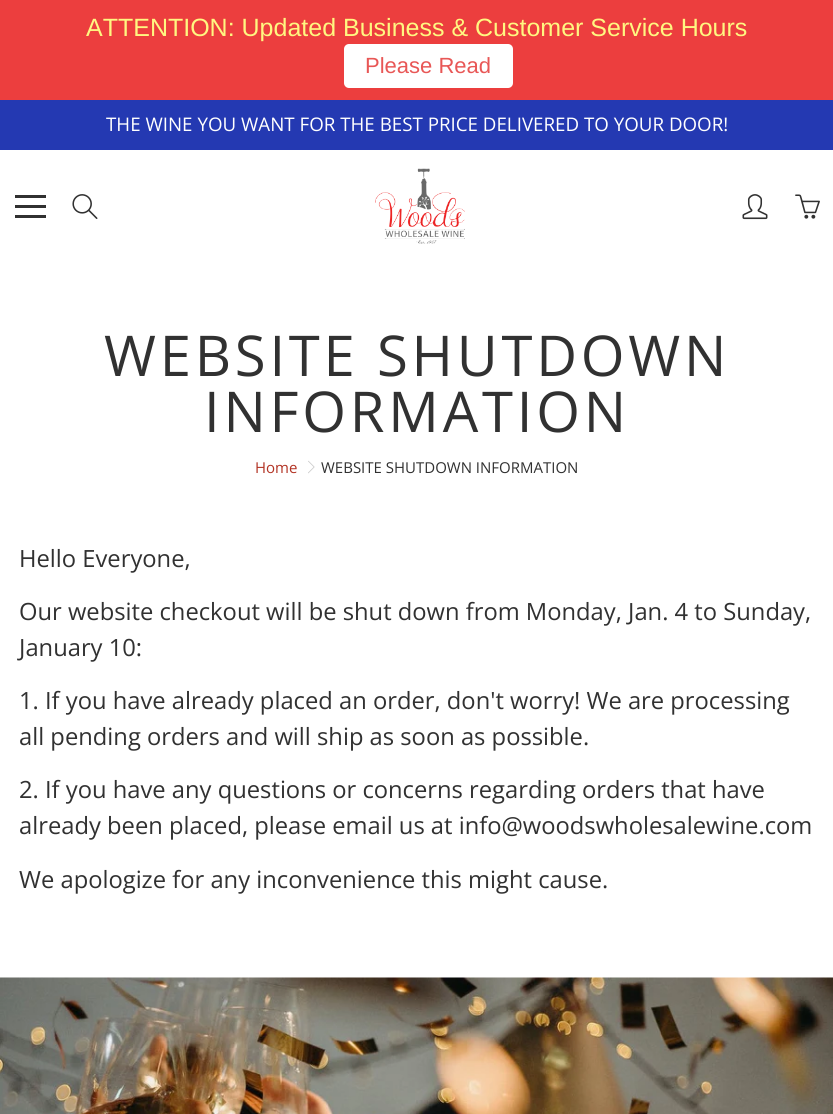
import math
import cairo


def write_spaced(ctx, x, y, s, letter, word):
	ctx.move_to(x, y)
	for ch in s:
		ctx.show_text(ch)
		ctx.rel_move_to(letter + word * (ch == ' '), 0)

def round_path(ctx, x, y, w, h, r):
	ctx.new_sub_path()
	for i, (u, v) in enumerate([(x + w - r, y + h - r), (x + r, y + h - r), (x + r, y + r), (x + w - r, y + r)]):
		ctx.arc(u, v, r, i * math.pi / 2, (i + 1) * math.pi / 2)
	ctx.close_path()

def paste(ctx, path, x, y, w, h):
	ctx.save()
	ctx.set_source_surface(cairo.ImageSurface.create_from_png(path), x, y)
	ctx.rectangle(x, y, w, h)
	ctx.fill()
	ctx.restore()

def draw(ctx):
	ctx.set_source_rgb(1, 1, 1)
	ctx.paint()
	ctx.set_source_rgb(0.922, 0.243, 0.243)
	ctx.rectangle(0, 0, 833, 100)
	ctx.fill()
	ctx.select_font_face('Liberation Sans')
	ctx.set_font_size(25)
	ctx.set_source_rgb(1, 0.965, 0.506)
	ctx.move_to(86, 36)
	ctx.show_text('ATTENTION: Updated Business & Customer Service Hours')
	ctx.set_source_rgb(1, 1, 1)
	round_path(ctx, 344, 44, 169, 44, 5)
	ctx.fill()
	ctx.set_font_size(22)
	ctx.set_source_rgb(0.91, 0.341, 0.337)
	ctx.move_to(365, 73)
	ctx.show_text('Please Read')
	ctx.set_source_rgb(0.141, 0.224, 0.698)
	ctx.rectangle(0, 100, 833, 50)
	ctx.fill()
	ctx.select_font_face('Open Sans')
	ctx.set_font_size(18.75)
	ctx.set_source_rgb(1, 1, 1)
	ctx.move_to(106, 131)
	ctx.show_text('THE WINE YOU WANT FOR THE BEST PRICE DELIVERED TO YOUR DOOR!')
	ctx.set_source_rgb(0.192, 0.192, 0.192)
	ctx.rectangle(15, 205, 31, 3)
	ctx.rectangle(15, 195, 31, 3)
	ctx.rectangle(15, 215, 31, 3)
	ctx.fill()
	paste(ctx, 'media/1.png', 72, 194, 26, 25)
	paste(ctx, 'media/2.png', 375, 168, 90, 76)
	paste(ctx, 'media/3.png', 742, 194, 26, 26)
	paste(ctx, 'media/4.png', 795, 194, 25, 25)
	ctx.set_font_size(56.25)
	write_spaced(ctx, 104, 376, 'WEBSITE SHUTDOWN', 3.75, 0)
	write_spaced(ctx, 204, 432, 'INFORMATION', 3.75, 0)
	ctx.set_font_size(15)
	ctx.set_source_rgb(0.698, 0.2, 0.141)
	ctx.move_to(255, 473)
	ctx.show_text('Home')
	paste(ctx, 'media/5.png', 308, 460, 7, 14)
	ctx.set_source_rgb(0.192, 0.192, 0.192)
	ctx.move_to(321, 473)
	ctx.show_text('WEBSITE SHUTDOWN INFORMATION')
	ctx.set_font_size(23.75)
	for x, y, s in [
		(19, 567, 'Hello Everyone,'),
		(19, 620, 'Our website checkout will be shut down from Monday, Jan. 4 to Sunday,'),
		(19, 656, 'January 10:'),
		(19, 709, '1. If you have already placed an order, don\'t worry! We are processing'),
		(19, 745, 'all pending orders and will ship as soon as possible.'),
		(19, 798, '2. If you have any questions or concerns regarding orders that have'),
		(19, 834, 'already been placed, please email us at info@woodswholesalewine.com'),
		(19, 888, 'We apologize for any inconvenience this might cause.'),
	]:
		ctx.move_to(x, y)
		ctx.show_text(s)
	paste(ctx, 'media/6.png', 0, 977, 833, 137)


surface = cairo.ImageSurface(cairo.FORMAT_RGB24, 833, 1114)
ctx = cairo.Context(surface)
options = cairo.FontOptions()
options.set_hint_metrics(cairo.HINT_METRICS_OFF)
options.set_hint_style(cairo.HINT_STYLE_NONE)
ctx.set_font_options(options)
ctx.set_miter_limit(4)
draw(ctx)
surface.write_to_png('image.png')
